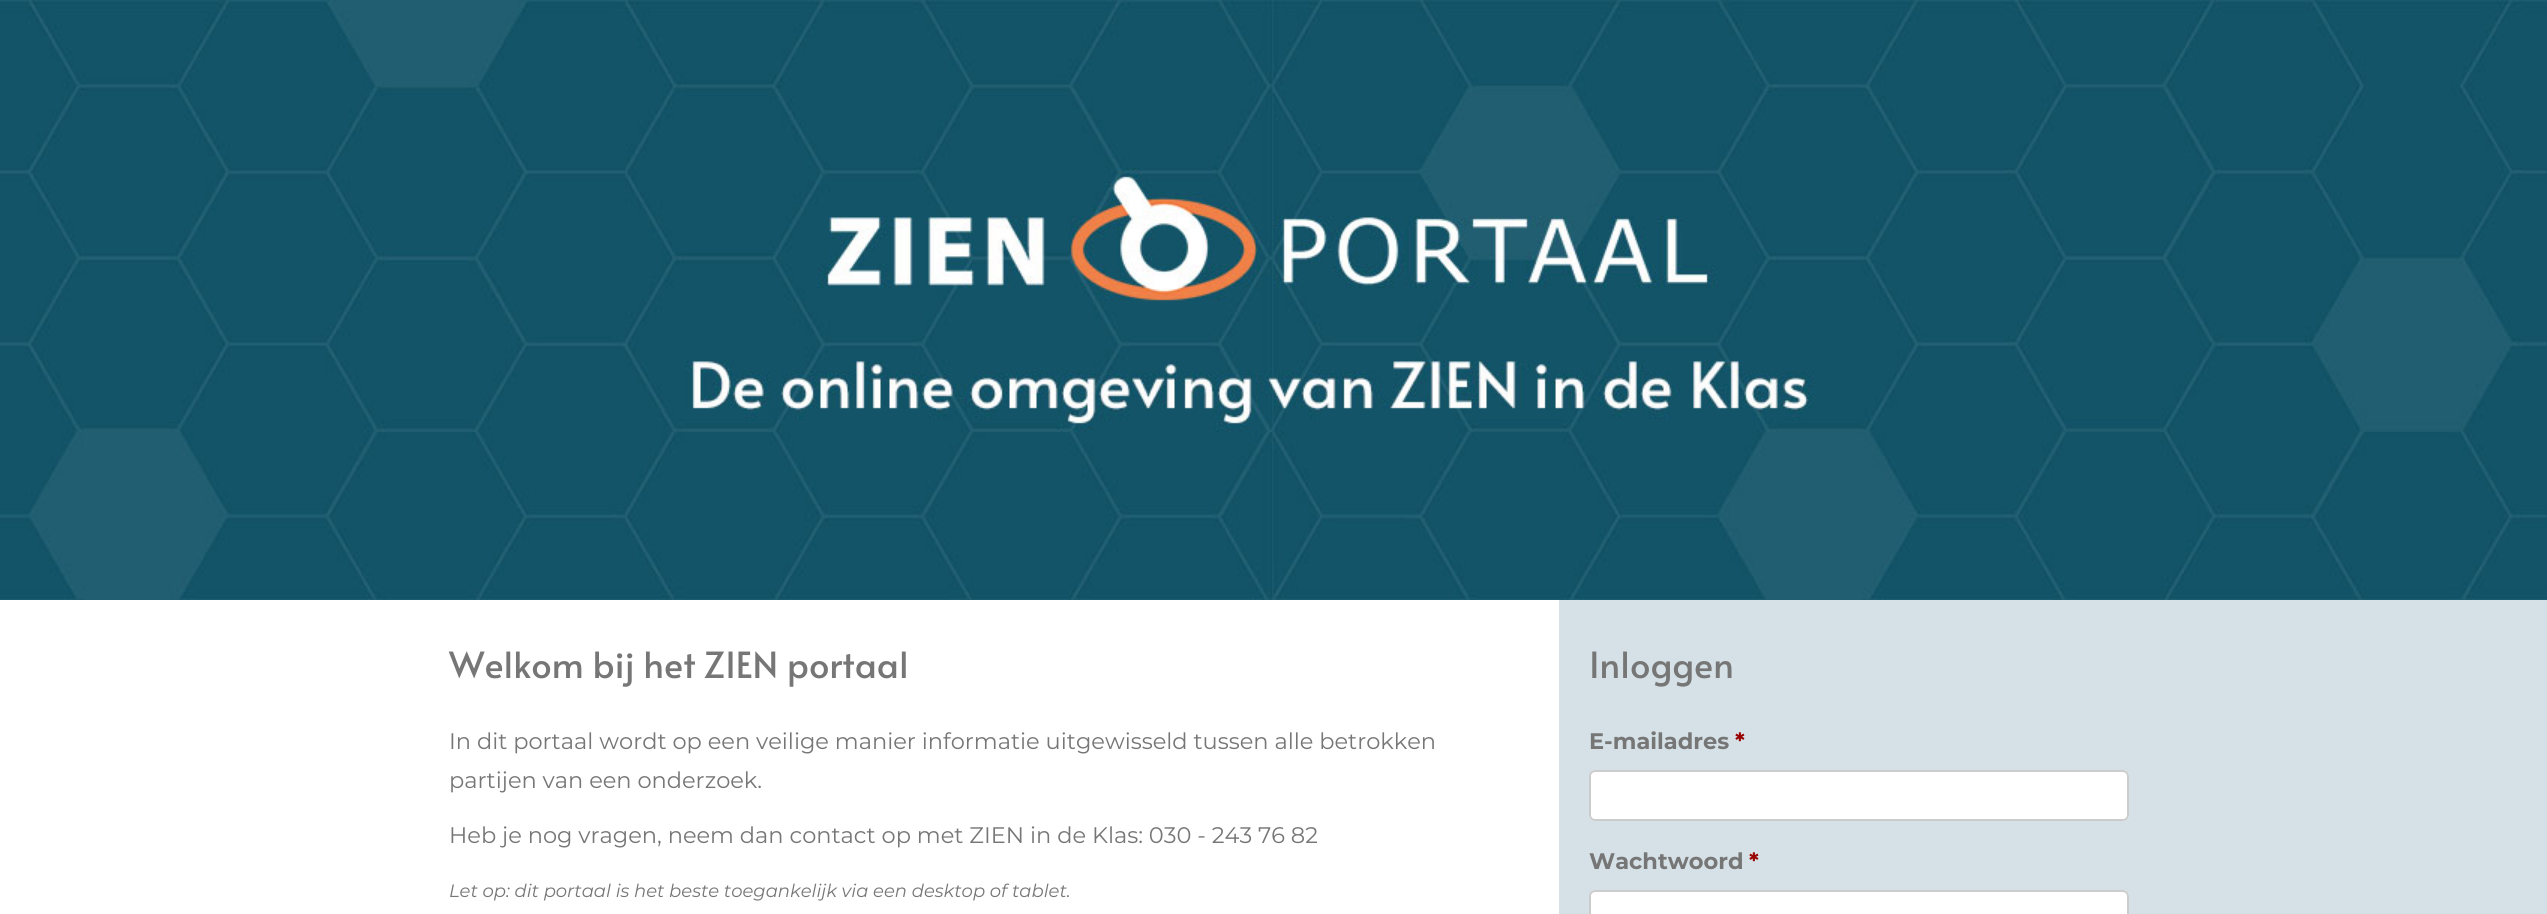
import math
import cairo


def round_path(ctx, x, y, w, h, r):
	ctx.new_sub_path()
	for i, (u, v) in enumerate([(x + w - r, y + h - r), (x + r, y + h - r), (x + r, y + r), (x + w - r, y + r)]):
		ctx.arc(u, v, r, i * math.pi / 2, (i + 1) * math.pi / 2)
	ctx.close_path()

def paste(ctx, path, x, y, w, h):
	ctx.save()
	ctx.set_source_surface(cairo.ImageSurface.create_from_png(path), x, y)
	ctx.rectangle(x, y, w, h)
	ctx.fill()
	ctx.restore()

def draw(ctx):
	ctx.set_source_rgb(1, 1, 1)
	ctx.paint()
	paste(ctx, 'media/1.png', 0, 0, 2547, 600)
	ctx.select_font_face('Alata')
	ctx.set_font_size(36)
	ctx.set_source_rgb(0.463, 0.463, 0.463)
	ctx.move_to(449, 678)
	ctx.show_text('Welkom bij het ZIEN portaal')
	ctx.select_font_face('Montserrat')
	ctx.set_font_size(22.5)
	for x, y, s in [
		(449, 749, 'In dit portaal wordt op een veilige manier informatie uitgewisseld tussen alle betrokken'),
		(449, 788, 'partijen van een onderzoek.'),
		(449, 843, 'Heb je nog vragen, neem dan contact op met ZIEN in de Klas: 030 - 243 76 82'),
	]:
		ctx.move_to(x, y)
		ctx.show_text(s)
	ctx.select_font_face('Montserrat', cairo.FONT_SLANT_ITALIC)
	ctx.set_font_size(18)
	ctx.move_to(449, 897)
	ctx.show_text('Let op: dit portaal is het beste toegankelijk via een desktop of tablet.')
	ctx.set_source_rgb(0.835, 0.882, 0.902)
	ctx.rectangle(1559, 600, 988, 314)
	ctx.fill()
	ctx.select_font_face('Alata')
	ctx.set_font_size(36)
	ctx.set_source_rgb(0.463, 0.463, 0.463)
	ctx.move_to(1589, 678)
	ctx.show_text('Inloggen')
	ctx.select_font_face('Montserrat', cairo.FONT_SLANT_NORMAL, cairo.FONT_WEIGHT_BOLD)
	ctx.set_font_size(22.5)
	ctx.move_to(1589, 749)
	ctx.show_text('E-mailadres')
	ctx.set_source_rgb(0.6, 0, 0)
	ctx.move_to(1735, 749)
	ctx.show_text('*')
	ctx.set_source_rgb(1, 1, 1)
	round_path(ctx, 1589, 770, 540, 51, 6)
	ctx.fill()
	ctx.set_source_rgb(0.925, 0.925, 0.925)
	ctx.new_path()
	ctx.move_to(1594, 772)
	ctx.line_to(2122, 772)
	ctx.curve_to(2125, 772, 2127, 775, 2127, 777)
	ctx.curve_to(2127, 774, 2125, 771, 2122, 771)
	ctx.line_to(1595, 771)
	ctx.curve_to(1592, 771, 1590, 774, 1590, 777)
	ctx.curve_to(1590, 775, 1592, 772, 1594, 772)
	ctx.close_path()
	ctx.fill()
	round_path(ctx, 1590, 771, 538, 49, 5)
	ctx.set_source_rgb(0.8, 0.8, 0.8)
	ctx.stroke()
	ctx.set_source_rgb(0.463, 0.463, 0.463)
	ctx.move_to(1589, 869)
	ctx.show_text('Wachtwoord')
	ctx.set_source_rgb(0.6, 0, 0)
	ctx.move_to(1749, 869)
	ctx.show_text('*')
	ctx.set_source_rgb(1, 1, 1)
	round_path(ctx, 1589, 890, 540, 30, 6)
	ctx.fill()
	ctx.set_source_rgb(0.925, 0.925, 0.925)
	ctx.new_path()
	ctx.move_to(1594, 892)
	ctx.line_to(2122, 892)
	ctx.curve_to(2125, 892, 2127, 895, 2127, 897)
	ctx.curve_to(2127, 894, 2125, 891, 2122, 891)
	ctx.line_to(1595, 891)
	ctx.curve_to(1592, 891, 1590, 894, 1590, 897)
	ctx.curve_to(1590, 895, 1592, 892, 1594, 892)
	ctx.close_path()
	ctx.fill()
	round_path(ctx, 1590, 891, 538, 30, 5)
	ctx.set_source_rgb(0.8, 0.8, 0.8)
	ctx.stroke()


surface = cairo.ImageSurface(cairo.FORMAT_RGB24, 2547, 914)
ctx = cairo.Context(surface)
options = cairo.FontOptions()
options.set_hint_metrics(cairo.HINT_METRICS_OFF)
options.set_hint_style(cairo.HINT_STYLE_NONE)
ctx.set_font_options(options)
ctx.set_miter_limit(4)
draw(ctx)
surface.write_to_png('image.png')
